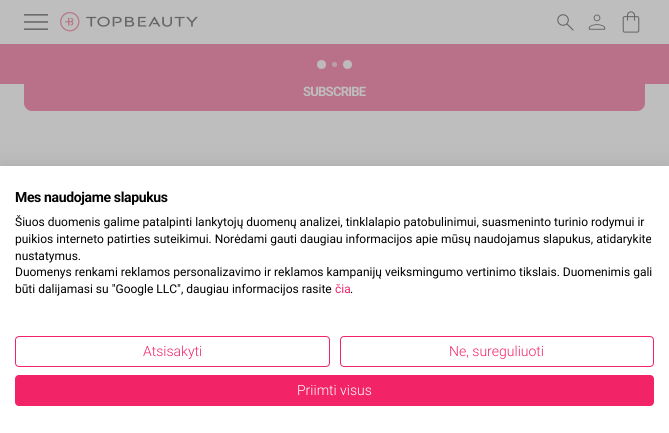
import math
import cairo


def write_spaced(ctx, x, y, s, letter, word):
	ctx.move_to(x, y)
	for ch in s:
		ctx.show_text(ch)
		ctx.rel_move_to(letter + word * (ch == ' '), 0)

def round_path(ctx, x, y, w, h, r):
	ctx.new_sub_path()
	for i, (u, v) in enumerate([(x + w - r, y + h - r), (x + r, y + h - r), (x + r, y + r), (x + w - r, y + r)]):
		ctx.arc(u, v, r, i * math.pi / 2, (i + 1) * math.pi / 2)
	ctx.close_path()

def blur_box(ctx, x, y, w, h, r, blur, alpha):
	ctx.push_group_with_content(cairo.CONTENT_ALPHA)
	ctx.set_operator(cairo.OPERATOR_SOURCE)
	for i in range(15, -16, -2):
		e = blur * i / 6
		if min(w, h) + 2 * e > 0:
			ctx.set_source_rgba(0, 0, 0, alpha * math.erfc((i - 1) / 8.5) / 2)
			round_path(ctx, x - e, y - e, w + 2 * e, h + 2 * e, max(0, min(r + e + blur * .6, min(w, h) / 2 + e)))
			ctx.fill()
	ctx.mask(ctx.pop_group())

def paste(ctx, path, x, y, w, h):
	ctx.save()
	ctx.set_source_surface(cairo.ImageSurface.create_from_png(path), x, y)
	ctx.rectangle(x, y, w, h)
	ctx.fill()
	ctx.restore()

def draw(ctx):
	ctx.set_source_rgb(0.745, 0.745, 0.745)
	ctx.paint()
	paste(ctx, 'media/1.png', 24, 14, 24, 16)
	paste(ctx, 'media/2.png', 60, 12, 138, 20)
	paste(ctx, 'media/3.png', 557, 14, 17, 17)
	paste(ctx, 'media/4.png', 588, 14, 18, 16)
	paste(ctx, 'media/5.png', 622, 11, 18, 22)
	ctx.set_source_rgb(0.725, 0.443, 0.537)
	round_path(ctx, 24, 72, 621, 39, 8)
	ctx.fill()
	ctx.rectangle(0, 44, 669, 40)
	ctx.fill()
	ctx.set_source_rgb(0.745, 0.725, 0.733)
	ctx.arc(321.5, 64.5, 4.5, 0, 2 * math.pi)
	ctx.fill()
	ctx.set_source_rgb(0.737, 0.612, 0.655)
	ctx.arc(334.5, 64.5, 2.6, 0, 2 * math.pi)
	ctx.fill()
	ctx.set_source_rgb(0.745, 0.725, 0.733)
	ctx.arc(347.5, 64.5, 4.5, 0, 2 * math.pi)
	ctx.fill()
	ctx.select_font_face('Roboto', cairo.FONT_SLANT_NORMAL, cairo.FONT_WEIGHT_BOLD)
	ctx.set_font_size(13)
	ctx.set_source_rgb(0.745, 0.745, 0.745)
	write_spaced(ctx, 303, 96, 'SUBSCRIBE', -0.75, 0)
	ctx.set_source_rgb(0, 0, 0)
	blur_box(ctx, 0, 166, 669, 267, 0, 12, 0.1)
	ctx.set_source_rgb(1, 1, 1)
	ctx.rectangle(0, 166, 669, 267)
	ctx.fill()
	ctx.set_font_size(14)
	ctx.set_source_rgb(0, 0, 0)
	write_spaced(ctx, 15, 202, 'Mes naudojame slapukus', -0.35, 0)
	ctx.select_font_face('Roboto')
	ctx.set_font_size(12)
	for x, y, s in [
		(15, 226, 'Šiuos duomenis galime patalpinti lankytojų duomenų analizei, tinklalapio patobulinimui, suasmeninto turinio rodymui ir'),
		(15, 243, 'puikios interneto patirties suteikimui. Norėdami gauti daugiau informacijos apie mūsų naudojamus slapukus, atidarykite'),
		(15, 260, 'nustatymus.'),
		(15, 276, 'Duomenys renkami reklamos personalizavimo ir reklamos kampanijų veiksmingumo vertinimo tikslais. Duomenimis gali'),
		(15, 293, 'būti dalijamasi su "Google LLC", daugiau informacijos rasite'),
	]:
		ctx.move_to(x, y)
		ctx.show_text(s)
	ctx.set_source_rgb(0.949, 0.141, 0.404)
	ctx.move_to(335, 293)
	ctx.show_text('čia')
	ctx.set_source_rgb(0, 0, 0)
	ctx.move_to(350, 293)
	ctx.show_text('.')
	round_path(ctx, 15.5, 336.5, 314, 30, 3.5)
	ctx.set_source_rgb(0.949, 0.141, 0.404)
	ctx.set_line_width(1)
	ctx.stroke()
	ctx.select_font_face('Roboto Light')
	ctx.set_font_size(14)
	ctx.move_to(143, 356)
	ctx.show_text('Atsisakyti')
	round_path(ctx, 340.5, 336.5, 313, 30, 3.5)
	ctx.stroke()
	ctx.move_to(449, 356)
	ctx.show_text('Ne, sureguliuoti')
	round_path(ctx, 15.5, 375.5, 638, 30, 3.5)
	ctx.fill_preserve()
	ctx.stroke()
	ctx.set_source_rgb(1, 1, 1)
	ctx.move_to(297, 395)
	ctx.show_text('Priimti visus')


surface = cairo.ImageSurface(cairo.FORMAT_RGB24, 669, 433)
ctx = cairo.Context(surface)
options = cairo.FontOptions()
options.set_hint_metrics(cairo.HINT_METRICS_OFF)
options.set_hint_style(cairo.HINT_STYLE_NONE)
ctx.set_font_options(options)
ctx.set_miter_limit(4)
draw(ctx)
surface.write_to_png('image.png')
